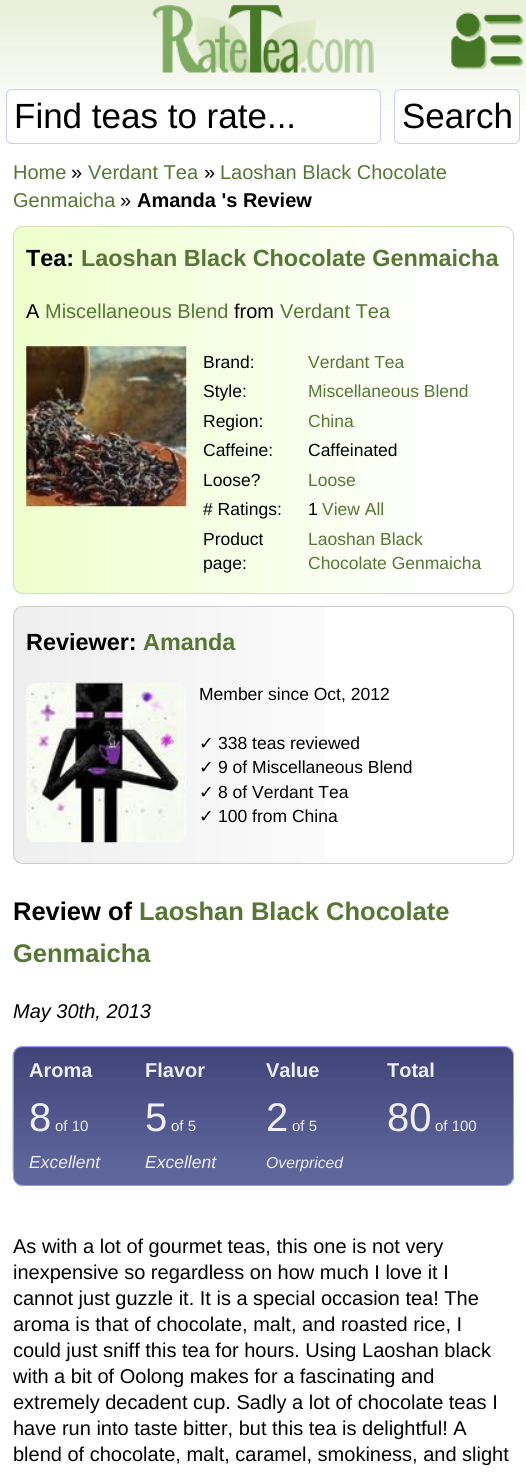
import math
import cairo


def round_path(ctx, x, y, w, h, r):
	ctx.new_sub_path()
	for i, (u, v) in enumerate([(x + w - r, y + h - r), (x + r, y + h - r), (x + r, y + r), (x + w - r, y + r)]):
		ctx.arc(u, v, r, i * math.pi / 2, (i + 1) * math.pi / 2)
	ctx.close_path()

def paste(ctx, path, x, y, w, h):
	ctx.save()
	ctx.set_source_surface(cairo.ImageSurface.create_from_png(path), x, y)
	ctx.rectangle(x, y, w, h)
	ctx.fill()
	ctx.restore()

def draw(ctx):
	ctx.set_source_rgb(1, 1, 1)
	ctx.paint()
	paste(ctx, 'media/1.png', 0, 0, 526, 111)
	paste(ctx, 'media/2.png', 152, 4, 222, 69)
	paste(ctx, 'media/3.png', 451, 12, 73, 58)
	ctx.set_source_rgb(1, 1, 1)
	round_path(ctx, 6.5, 89.5, 374, 54, 5.5)
	ctx.fill_preserve()
	ctx.set_source_rgb(0.8, 0.8, 0.933)
	ctx.set_line_width(1)
	ctx.stroke()
	ctx.select_font_face('Liberation Sans')
	ctx.set_font_size(35)
	ctx.set_source_rgb(0, 0, 0)
	ctx.move_to(14, 128)
	ctx.show_text('Find teas to rate...')
	ctx.set_source_rgb(1, 1, 1)
	round_path(ctx, 394.5, 89.5, 125, 54, 5.5)
	ctx.fill_preserve()
	ctx.set_source_rgb(0.8, 0.8, 0.933)
	ctx.stroke()
	ctx.set_source_rgb(0, 0, 0)
	ctx.move_to(402, 128)
	ctx.show_text('Search')
	ctx.set_font_size(20)
	ctx.set_source_rgb(0.333, 0.467, 0.2)
	ctx.move_to(13, 179)
	ctx.show_text('Home')
	ctx.set_source_rgb(0, 0, 0)
	ctx.move_to(71, 179)
	ctx.show_text('»')
	ctx.set_source_rgb(0.333, 0.467, 0.2)
	ctx.move_to(88, 179)
	ctx.show_text('Verdant Tea')
	ctx.set_source_rgb(0, 0, 0)
	ctx.move_to(204, 179)
	ctx.show_text('»')
	ctx.set_source_rgb(0.333, 0.467, 0.2)
	ctx.move_to(220, 179)
	ctx.show_text('Laoshan Black Chocolate')
	ctx.move_to(13, 207)
	ctx.show_text('Genmaicha')
	ctx.set_source_rgb(0, 0, 0)
	ctx.move_to(120, 207)
	ctx.show_text('»')
	ctx.select_font_face('Liberation Sans', cairo.FONT_SLANT_NORMAL, cairo.FONT_WEIGHT_BOLD)
	ctx.move_to(137, 207)
	ctx.show_text('Amanda \'s Review')
	paste(ctx, 'media/4.png', 13, 226, 404, 368)
	round_path(ctx, 13.5, 226.5, 500, 367, 9.5)
	ctx.set_source_rgb(0.816, 0.878, 0.69)
	ctx.stroke()
	ctx.set_font_size(23.4)
	ctx.set_source_rgb(0, 0, 0)
	ctx.move_to(26, 266)
	ctx.show_text('Tea:')
	ctx.set_source_rgb(0.333, 0.467, 0.2)
	ctx.move_to(81, 266)
	ctx.show_text('Laoshan Black Chocolate Genmaicha')
	ctx.select_font_face('Liberation Sans')
	ctx.set_font_size(20)
	ctx.set_source_rgb(0, 0, 0)
	ctx.move_to(26, 318)
	ctx.show_text('A')
	ctx.set_source_rgb(0.333, 0.467, 0.2)
	ctx.move_to(45, 318)
	ctx.show_text('Miscellaneous Blend')
	ctx.set_source_rgb(0, 0, 0)
	ctx.move_to(234, 318)
	ctx.show_text('from')
	ctx.set_source_rgb(0.333, 0.467, 0.2)
	ctx.move_to(280, 318)
	ctx.show_text('Verdant Tea')
	paste(ctx, 'media/5.png', 26, 346, 161, 161)
	ctx.set_font_size(17.5)
	ctx.set_source_rgb(0, 0, 0)
	ctx.move_to(203, 368)
	ctx.show_text('Brand:')
	ctx.set_source_rgb(0.333, 0.467, 0.2)
	ctx.move_to(308, 368)
	ctx.show_text('Verdant Tea')
	ctx.set_source_rgb(0, 0, 0)
	ctx.move_to(203, 397)
	ctx.show_text('Style:')
	ctx.set_source_rgb(0.333, 0.467, 0.2)
	ctx.move_to(308, 397)
	ctx.show_text('Miscellaneous Blend')
	ctx.set_source_rgb(0, 0, 0)
	ctx.move_to(203, 427)
	ctx.show_text('Region:')
	ctx.set_source_rgb(0.333, 0.467, 0.2)
	ctx.move_to(308, 427)
	ctx.show_text('China')
	ctx.set_source_rgb(0, 0, 0)
	for x, y, s in [
		(203, 456, 'Caffeine:'),
		(308, 456, 'Caffeinated'),
		(203, 486, 'Loose?'),
	]:
		ctx.move_to(x, y)
		ctx.show_text(s)
	ctx.set_source_rgb(0.333, 0.467, 0.2)
	ctx.move_to(308, 486)
	ctx.show_text('Loose')
	ctx.set_source_rgb(0, 0, 0)
	ctx.move_to(203, 515)
	ctx.show_text('# Ratings:')
	ctx.move_to(308, 515)
	ctx.show_text('1')
	ctx.set_source_rgb(0.333, 0.467, 0.2)
	ctx.move_to(322, 515)
	ctx.show_text('View All')
	ctx.set_source_rgb(0, 0, 0)
	ctx.move_to(203, 545)
	ctx.show_text('Product')
	ctx.move_to(203, 569)
	ctx.show_text('page:')
	ctx.set_source_rgb(0.333, 0.467, 0.2)
	ctx.move_to(308, 545)
	ctx.show_text('Laoshan Black')
	ctx.move_to(308, 569)
	ctx.show_text('Chocolate Genmaicha')
	paste(ctx, 'media/6.png', 13, 606, 311, 258)
	round_path(ctx, 13.5, 606.5, 500, 257, 9.5)
	ctx.set_source_rgb(0.8, 0.8, 0.8)
	ctx.stroke()
	ctx.select_font_face('Liberation Sans', cairo.FONT_SLANT_NORMAL, cairo.FONT_WEIGHT_BOLD)
	ctx.set_font_size(23.4)
	ctx.set_source_rgb(0, 0, 0)
	ctx.move_to(26, 650)
	ctx.show_text('Reviewer:')
	ctx.set_source_rgb(0.333, 0.467, 0.2)
	ctx.move_to(143, 650)
	ctx.show_text('Amanda')
	paste(ctx, 'media/7.png', 26, 682, 160, 161)
	ctx.select_font_face('Liberation Sans')
	ctx.set_font_size(17.5)
	ctx.set_source_rgb(0, 0, 0)
	ctx.move_to(199, 700)
	ctx.show_text('Member since Oct, 2012')
	ctx.select_font_face('DejaVu Sans')
	ctx.move_to(199, 749)
	ctx.show_text('✓')
	ctx.select_font_face('Liberation Sans')
	ctx.move_to(218, 749)
	ctx.show_text('338 teas reviewed')
	ctx.select_font_face('DejaVu Sans')
	ctx.move_to(199, 773)
	ctx.show_text('✓')
	ctx.select_font_face('Liberation Sans')
	ctx.move_to(218, 773)
	ctx.show_text('9 of Miscellaneous Blend')
	ctx.select_font_face('DejaVu Sans')
	ctx.move_to(199, 798)
	ctx.show_text('✓')
	ctx.select_font_face('Liberation Sans')
	ctx.move_to(218, 798)
	ctx.show_text('8 of Verdant Tea')
	ctx.select_font_face('DejaVu Sans')
	ctx.move_to(199, 822)
	ctx.show_text('✓')
	ctx.select_font_face('Liberation Sans')
	ctx.move_to(218, 822)
	ctx.show_text('100 from China')
	ctx.select_font_face('Liberation Sans', cairo.FONT_SLANT_NORMAL, cairo.FONT_WEIGHT_BOLD)
	ctx.set_font_size(25.5)
	ctx.move_to(13, 920)
	ctx.show_text('Review of')
	ctx.set_source_rgb(0.333, 0.467, 0.2)
	ctx.move_to(139, 920)
	ctx.show_text('Laoshan Black Chocolate')
	ctx.move_to(13, 962)
	ctx.show_text('Genmaicha')
	ctx.select_font_face('Liberation Sans', cairo.FONT_SLANT_ITALIC)
	ctx.set_font_size(20)
	ctx.set_source_rgb(0, 0, 0)
	ctx.move_to(13, 1018)
	ctx.show_text('May 30th, 2013')
	ctx.set_source_rgb(0.373, 0.4, 0.612)
	round_path(ctx, 13, 1046, 501, 140, 10)
	ctx.fill()
	paste(ctx, 'media/8.png', 12, 1047, 502, 126)
	round_path(ctx, 13.5, 1046.5, 500, 139, 9.5)
	ctx.set_source_rgb(0.6, 0.6, 1)
	ctx.stroke()
	ctx.select_font_face('Liberation Sans', cairo.FONT_SLANT_NORMAL, cairo.FONT_WEIGHT_BOLD)
	ctx.set_source_rgb(0.933, 0.933, 1)
	for x, y, s in [
		(29, 1077, 'Aroma'),
		(145, 1077, 'Flavor'),
		(266, 1077, 'Value'),
		(387, 1077, 'Total'),
	]:
		ctx.move_to(x, y)
		ctx.show_text(s)
	ctx.select_font_face('Liberation Sans')
	ctx.set_font_size(40)
	ctx.move_to(29, 1131)
	ctx.show_text('8')
	ctx.set_font_size(15)
	ctx.move_to(55, 1131)
	ctx.show_text('of 10')
	ctx.set_font_size(40)
	ctx.move_to(145, 1131)
	ctx.show_text('5')
	ctx.set_font_size(15)
	ctx.move_to(171, 1131)
	ctx.show_text('of 5')
	ctx.set_font_size(40)
	ctx.move_to(266, 1131)
	ctx.show_text('2')
	ctx.set_font_size(15)
	ctx.move_to(292, 1131)
	ctx.show_text('of 5')
	ctx.set_font_size(40)
	ctx.move_to(387, 1131)
	ctx.show_text('80')
	ctx.set_font_size(15)
	ctx.move_to(435, 1131)
	ctx.show_text('of 100')
	ctx.select_font_face('Liberation Sans', cairo.FONT_SLANT_ITALIC)
	ctx.set_font_size(17.5)
	ctx.move_to(29, 1168)
	ctx.show_text('Excellent')
	ctx.move_to(145, 1168)
	ctx.show_text('Excellent')
	ctx.set_font_size(15.75)
	ctx.move_to(266, 1168)
	ctx.show_text('Overpriced')
	ctx.select_font_face('Liberation Sans')
	ctx.set_font_size(20)
	ctx.set_source_rgb(0, 0, 0)
	for x, y, s in [
		(13, 1253, 'As with a lot of gourmet teas, this one is not very'),
		(13, 1279, 'inexpensive so regardless on how much I love it I'),
		(13, 1305, 'cannot just guzzle it. It is a special occasion tea! The'),
		(13, 1331, 'aroma is that of chocolate, malt, and roasted rice, I'),
		(13, 1357, 'could just sniff this tea for hours. Using Laoshan black'),
		(13, 1383, 'with a bit of Oolong makes for a fascinating and'),
		(13, 1409, 'extremely decadent cup. Sadly a lot of chocolate teas I'),
		(13, 1435, 'have run into taste bitter, but this tea is delightful! A'),
		(13, 1461, 'blend of chocolate, malt, caramel, smokiness, and slight'),
	]:
		ctx.move_to(x, y)
		ctx.show_text(s)


surface = cairo.ImageSurface(cairo.FORMAT_RGB24, 526, 1472)
ctx = cairo.Context(surface)
options = cairo.FontOptions()
options.set_hint_metrics(cairo.HINT_METRICS_OFF)
options.set_hint_style(cairo.HINT_STYLE_NONE)
ctx.set_font_options(options)
ctx.set_miter_limit(4)
draw(ctx)
surface.write_to_png('image.png')
